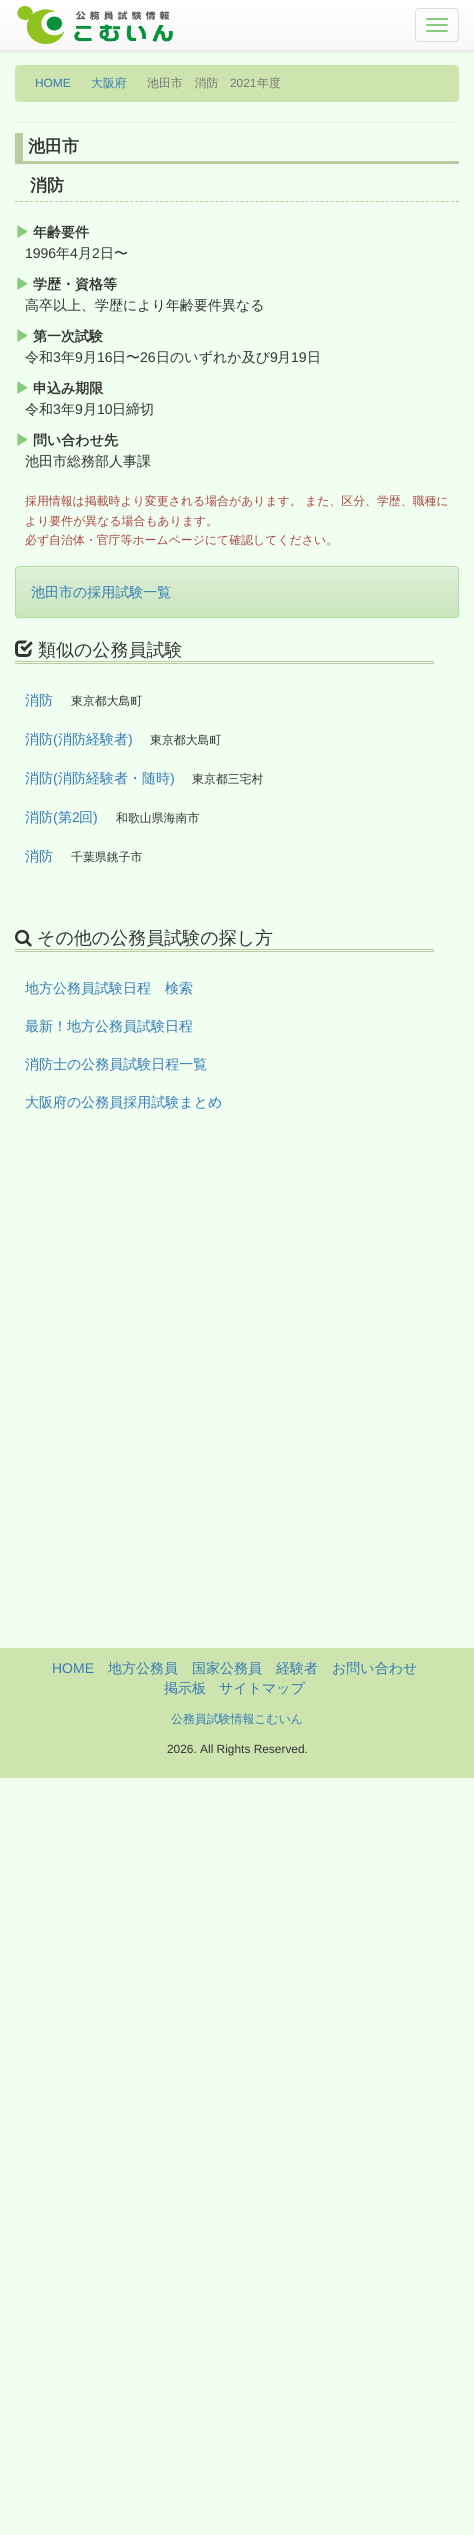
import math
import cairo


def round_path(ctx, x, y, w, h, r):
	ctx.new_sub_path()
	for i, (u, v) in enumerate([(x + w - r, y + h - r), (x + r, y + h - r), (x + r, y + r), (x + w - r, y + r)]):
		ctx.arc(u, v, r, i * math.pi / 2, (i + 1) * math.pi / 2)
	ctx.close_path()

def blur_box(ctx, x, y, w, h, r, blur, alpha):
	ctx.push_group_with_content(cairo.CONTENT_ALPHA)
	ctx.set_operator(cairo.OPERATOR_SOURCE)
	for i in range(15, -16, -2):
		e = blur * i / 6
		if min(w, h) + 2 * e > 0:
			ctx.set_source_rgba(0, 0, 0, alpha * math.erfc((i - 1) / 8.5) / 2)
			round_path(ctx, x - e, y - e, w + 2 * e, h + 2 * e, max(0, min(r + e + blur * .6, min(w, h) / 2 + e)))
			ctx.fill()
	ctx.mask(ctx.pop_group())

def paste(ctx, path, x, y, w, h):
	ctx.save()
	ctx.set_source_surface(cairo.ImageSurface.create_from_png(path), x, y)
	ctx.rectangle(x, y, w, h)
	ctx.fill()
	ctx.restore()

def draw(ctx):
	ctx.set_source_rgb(0.941, 1, 0.941)
	ctx.paint()
	ctx.set_source_rgb(0, 0, 0)
	blur_box(ctx, 0, 1, 474, 51, 0, 2.5, 0.07)
	gradient = cairo.LinearGradient(237, 0, 237, 50)
	gradient.add_color_stop_rgba(0, 1, 1, 1, 1)
	gradient.add_color_stop_rgba(1, 0.973, 0.973, 0.973, 1)
	ctx.set_source(gradient)
	ctx.rectangle(0, 0, 474, 50)
	ctx.fill()
	ctx.set_source_rgb(0.906, 0.906, 0.906)
	ctx.rectangle(0, 50, 474, 1)
	ctx.fill()
	paste(ctx, 'media/1.png', 17, 6, 156, 38)
	round_path(ctx, 415.5, 8.5, 43, 33, 3.5)
	ctx.set_source_rgb(0.867, 0.867, 0.867)
	ctx.set_line_width(1)
	ctx.stroke()
	ctx.set_source_rgb(0.533, 0.796, 0.498)
	round_path(ctx, 426, 18, 22, 2, 1)
	ctx.fill()
	round_path(ctx, 426, 24, 22, 2, 1)
	ctx.fill()
	round_path(ctx, 426, 30, 22, 2, 1)
	ctx.fill()
	ctx.set_source_rgb(0.808, 0.894, 0.682)
	round_path(ctx, 15, 65, 444, 37, 4)
	ctx.fill()
	ctx.select_font_face('Liberation Sans')
	ctx.set_font_size(11.9)
	ctx.set_source_rgb(0.2, 0.478, 0.718)
	ctx.move_to(35, 87)
	ctx.show_text('HOME')
	ctx.select_font_face('WenQuanYi Zen Hei Medium')
	ctx.move_to(91, 87)
	ctx.show_text('大阪府')
	ctx.set_source_rgb(0.467, 0.467, 0.467)
	ctx.move_to(147, 87)
	ctx.show_text('池田市　消防')
	ctx.select_font_face('Liberation Sans')
	ctx.move_to(230, 87)
	ctx.show_text('2021')
	ctx.select_font_face('WenQuanYi Zen Hei Medium')
	ctx.move_to(257, 87)
	ctx.show_text('年度')
	ctx.set_source_rgb(0.933, 0.933, 0.933)
	ctx.rectangle(15, 122, 444, 1)
	ctx.fill()
	ctx.set_source_rgb(0.729, 0.8, 0.624)
	ctx.rectangle(15, 161, 444, 3)
	ctx.rectangle(15, 133, 8, 31)
	ctx.fill()
	ctx.select_font_face('WenQuanYi Zen Hei', cairo.FONT_SLANT_NORMAL, cairo.FONT_WEIGHT_BOLD)
	ctx.set_font_size(17)
	ctx.set_source_rgb(0.2, 0.2, 0.2)
	ctx.move_to(28, 152)
	ctx.show_text('池田市')
	ctx.new_path()
	ctx.move_to(15, 201.5)
	ctx.line_to(459, 201.5)
	ctx.set_source_rgb(0.729, 0.8, 0.624)
	ctx.set_dash([3, 2.01])
	ctx.stroke()
	ctx.set_source_rgb(0.2, 0.2, 0.2)
	ctx.move_to(30, 191)
	ctx.show_text('消防')
	paste(ctx, 'media/2.png', 17, 225, 11, 13)
	ctx.set_font_size(14)
	ctx.move_to(33, 237)
	ctx.show_text('年齢要件')
	ctx.select_font_face('Liberation Sans')
	ctx.move_to(25, 258)
	ctx.show_text('1996')
	ctx.select_font_face('WenQuanYi Zen Hei Medium')
	ctx.move_to(56, 258)
	ctx.show_text('年')
	ctx.select_font_face('Liberation Sans')
	ctx.move_to(70, 258)
	ctx.show_text('4')
	ctx.select_font_face('WenQuanYi Zen Hei Medium')
	ctx.move_to(78, 258)
	ctx.show_text('月')
	ctx.select_font_face('Liberation Sans')
	ctx.move_to(92, 258)
	ctx.show_text('2')
	ctx.select_font_face('WenQuanYi Zen Hei Medium')
	ctx.move_to(100, 258)
	ctx.show_text('日〜')
	paste(ctx, 'media/2.png', 17, 277, 11, 13)
	ctx.select_font_face('WenQuanYi Zen Hei', cairo.FONT_SLANT_NORMAL, cairo.FONT_WEIGHT_BOLD)
	ctx.move_to(33, 289)
	ctx.show_text('学歴・資格等')
	ctx.select_font_face('WenQuanYi Zen Hei Medium')
	ctx.move_to(25, 310)
	ctx.show_text('高卒以上、学歴により年齢要件異なる')
	paste(ctx, 'media/2.png', 17, 329, 11, 13)
	ctx.select_font_face('WenQuanYi Zen Hei', cairo.FONT_SLANT_NORMAL, cairo.FONT_WEIGHT_BOLD)
	ctx.move_to(33, 341)
	ctx.show_text('第一次試験')
	ctx.select_font_face('WenQuanYi Zen Hei Medium')
	ctx.move_to(25, 362)
	ctx.show_text('令和')
	ctx.select_font_face('Liberation Sans')
	ctx.move_to(53, 362)
	ctx.show_text('3')
	ctx.select_font_face('WenQuanYi Zen Hei Medium')
	ctx.move_to(61, 362)
	ctx.show_text('年')
	ctx.select_font_face('Liberation Sans')
	ctx.move_to(75, 362)
	ctx.show_text('9')
	ctx.select_font_face('WenQuanYi Zen Hei Medium')
	ctx.move_to(83, 362)
	ctx.show_text('月')
	ctx.select_font_face('Liberation Sans')
	ctx.move_to(97, 362)
	ctx.show_text('16')
	ctx.select_font_face('WenQuanYi Zen Hei Medium')
	ctx.move_to(112, 362)
	ctx.show_text('日〜')
	ctx.select_font_face('Liberation Sans')
	ctx.move_to(140, 362)
	ctx.show_text('26')
	ctx.select_font_face('WenQuanYi Zen Hei Medium')
	ctx.move_to(156, 362)
	ctx.show_text('日のいずれか及び')
	ctx.select_font_face('Liberation Sans')
	ctx.move_to(270, 362)
	ctx.show_text('9')
	ctx.select_font_face('WenQuanYi Zen Hei Medium')
	ctx.move_to(277, 362)
	ctx.show_text('月')
	ctx.select_font_face('Liberation Sans')
	ctx.move_to(291, 362)
	ctx.show_text('19')
	ctx.select_font_face('WenQuanYi Zen Hei Medium')
	ctx.move_to(307, 362)
	ctx.show_text('日')
	paste(ctx, 'media/2.png', 17, 381, 11, 13)
	ctx.select_font_face('WenQuanYi Zen Hei', cairo.FONT_SLANT_NORMAL, cairo.FONT_WEIGHT_BOLD)
	ctx.move_to(33, 393)
	ctx.show_text('申込み期限')
	ctx.select_font_face('WenQuanYi Zen Hei Medium')
	ctx.move_to(25, 414)
	ctx.show_text('令和')
	ctx.select_font_face('Liberation Sans')
	ctx.move_to(53, 414)
	ctx.show_text('3')
	ctx.select_font_face('WenQuanYi Zen Hei Medium')
	ctx.move_to(61, 414)
	ctx.show_text('年')
	ctx.select_font_face('Liberation Sans')
	ctx.move_to(75, 414)
	ctx.show_text('9')
	ctx.select_font_face('WenQuanYi Zen Hei Medium')
	ctx.move_to(83, 414)
	ctx.show_text('月')
	ctx.select_font_face('Liberation Sans')
	ctx.move_to(97, 414)
	ctx.show_text('10')
	ctx.select_font_face('WenQuanYi Zen Hei Medium')
	ctx.move_to(112, 414)
	ctx.show_text('日締切')
	paste(ctx, 'media/2.png', 17, 433, 11, 13)
	ctx.select_font_face('WenQuanYi Zen Hei', cairo.FONT_SLANT_NORMAL, cairo.FONT_WEIGHT_BOLD)
	ctx.move_to(33, 445)
	ctx.show_text('問い合わせ先')
	ctx.select_font_face('WenQuanYi Zen Hei Medium')
	ctx.move_to(25, 466)
	ctx.show_text('池田市総務部人事課')
	ctx.set_font_size(11.9)
	ctx.set_source_rgb(0.663, 0.267, 0.259)
	for x, y, s in [
		(25, 505, '採用情報は掲載時より変更される場合があります。'),
		(305, 505, 'また、区分、学歴、職種に'),
		(25, 525, 'より要件が異なる場合もあります。'),
		(25, 544, '必ず自治体・官庁等ホームページにて確認してください。'),
	]:
		ctx.move_to(x, y)
		ctx.show_text(s)
	ctx.set_source_rgb(0, 0, 0)
	blur_box(ctx, 15, 567, 444, 52, 4, 1, 0.05)
	ctx.save()
	round_path(ctx, 15, 566, 444, 52, 4)
	ctx.clip()
	gradient = cairo.LinearGradient(237, 567, 237, 617)
	gradient.add_color_stop_rgba(0, 0.875, 0.941, 0.847, 1)
	gradient.add_color_stop_rgba(1, 0.784, 0.898, 0.737, 1)
	ctx.set_source(gradient)
	ctx.rectangle(15, 567, 444, 50)
	ctx.fill()
	ctx.restore()
	ctx.set_source_rgb(0.906, 0.957, 0.886)
	ctx.new_path()
	ctx.move_to(19, 568)
	ctx.line_to(455, 568)
	ctx.curve_to(457, 568, 458, 569, 458, 571)
	ctx.curve_to(458, 569, 457, 567, 455, 567)
	ctx.line_to(18, 567)
	ctx.line_to(16, 569)
	ctx.line_to(16, 571)
	ctx.curve_to(16, 569, 17, 568, 19, 568)
	ctx.close_path()
	ctx.fill()
	round_path(ctx, 15.5, 566.5, 443, 51, 3.5)
	ctx.set_source_rgb(0.698, 0.859, 0.631)
	ctx.set_dash([])
	ctx.stroke()
	ctx.set_font_size(14)
	ctx.set_source_rgb(0.2, 0.478, 0.718)
	ctx.move_to(31, 597)
	ctx.show_text('池田市の採用試験一覧')
	ctx.set_source_rgb(0.729, 0.8, 0.624)
	ctx.rectangle(15, 661, 419, 1)
	ctx.fill()
	ctx.rectangle(15, 663, 419, 1)
	ctx.fill()
	paste(ctx, 'media/3.png', 15, 640, 18, 17)
	ctx.set_font_size(18)
	ctx.set_source_rgb(0.2, 0.2, 0.2)
	ctx.move_to(38, 656)
	ctx.show_text('類似の公務員試験')
	ctx.set_font_size(14)
	ctx.set_source_rgb(0.2, 0.478, 0.718)
	ctx.move_to(25, 705)
	ctx.show_text('消防')
	ctx.set_font_size(11.9)
	ctx.set_source_rgb(0.2, 0.2, 0.2)
	ctx.move_to(71, 705)
	ctx.show_text('東京都大島町')
	ctx.set_font_size(14)
	ctx.set_source_rgb(0.2, 0.478, 0.718)
	ctx.move_to(25, 744)
	ctx.show_text('消防')
	ctx.select_font_face('Liberation Sans')
	ctx.move_to(53, 744)
	ctx.show_text('(')
	ctx.select_font_face('WenQuanYi Zen Hei Medium')
	ctx.move_to(58, 744)
	ctx.show_text('消防経験者')
	ctx.select_font_face('Liberation Sans')
	ctx.move_to(128, 744)
	ctx.show_text(')')
	ctx.select_font_face('WenQuanYi Zen Hei Medium')
	ctx.set_font_size(11.9)
	ctx.set_source_rgb(0.2, 0.2, 0.2)
	ctx.move_to(150, 744)
	ctx.show_text('東京都大島町')
	ctx.set_font_size(14)
	ctx.set_source_rgb(0.2, 0.478, 0.718)
	ctx.move_to(25, 783)
	ctx.show_text('消防')
	ctx.select_font_face('Liberation Sans')
	ctx.move_to(53, 783)
	ctx.show_text('(')
	ctx.select_font_face('WenQuanYi Zen Hei Medium')
	ctx.move_to(58, 783)
	ctx.show_text('消防経験者・随時')
	ctx.select_font_face('Liberation Sans')
	ctx.move_to(170, 783)
	ctx.show_text(')')
	ctx.select_font_face('WenQuanYi Zen Hei Medium')
	ctx.set_font_size(11.9)
	ctx.set_source_rgb(0.2, 0.2, 0.2)
	ctx.move_to(192, 783)
	ctx.show_text('東京都三宅村')
	ctx.set_font_size(14)
	ctx.set_source_rgb(0.2, 0.478, 0.718)
	ctx.move_to(25, 822)
	ctx.show_text('消防')
	ctx.select_font_face('Liberation Sans')
	ctx.move_to(53, 822)
	ctx.show_text('(')
	ctx.select_font_face('WenQuanYi Zen Hei Medium')
	ctx.move_to(58, 822)
	ctx.show_text('第')
	ctx.select_font_face('Liberation Sans')
	ctx.move_to(72, 822)
	ctx.show_text('2')
	ctx.select_font_face('WenQuanYi Zen Hei Medium')
	ctx.move_to(79, 822)
	ctx.show_text('回')
	ctx.select_font_face('Liberation Sans')
	ctx.move_to(93, 822)
	ctx.show_text(')')
	ctx.select_font_face('WenQuanYi Zen Hei Medium')
	ctx.set_font_size(11.9)
	ctx.set_source_rgb(0.2, 0.2, 0.2)
	ctx.move_to(116, 822)
	ctx.show_text('和歌山県海南市')
	ctx.set_font_size(14)
	ctx.set_source_rgb(0.2, 0.478, 0.718)
	ctx.move_to(25, 861)
	ctx.show_text('消防')
	ctx.set_font_size(11.9)
	ctx.set_source_rgb(0.2, 0.2, 0.2)
	ctx.move_to(71, 861)
	ctx.show_text('千葉県銚子市')
	ctx.set_source_rgb(0.729, 0.8, 0.624)
	ctx.rectangle(15, 949, 419, 1)
	ctx.fill()
	ctx.rectangle(15, 951, 419, 1)
	ctx.fill()
	paste(ctx, 'media/4.png', 15, 929, 17, 18)
	ctx.set_font_size(18)
	ctx.set_source_rgb(0.2, 0.2, 0.2)
	ctx.move_to(37, 944)
	ctx.show_text('その他の公務員試験の探し方')
	ctx.set_font_size(14)
	ctx.set_source_rgb(0.2, 0.478, 0.718)
	for x, y, s in [
		(25, 993, '地方公務員試験日程　検索'),
		(25, 1031, '最新！地方公務員試験日程'),
		(25, 1069, '消防士の公務員試験日程一覧'),
		(25, 1107, '大阪府の公務員採用試験まとめ'),
	]:
		ctx.move_to(x, y)
		ctx.show_text(s)
	ctx.set_source_rgb(0.808, 0.894, 0.682)
	ctx.rectangle(0, 1648, 474, 130)
	ctx.fill()
	ctx.select_font_face('Liberation Sans')
	ctx.set_source_rgb(0.2, 0.478, 0.718)
	ctx.move_to(52, 1673)
	ctx.show_text('HOME')
	ctx.select_font_face('WenQuanYi Zen Hei Medium')
	for x, y, s in [
		(108, 1673, '地方公務員'),
		(192, 1673, '国家公務員'),
		(276, 1673, '経験者'),
		(332, 1673, 'お問い合わせ'),
		(164, 1693, '掲示板'),
		(219, 1693, 'サイトマップ'),
	]:
		ctx.move_to(x, y)
		ctx.show_text(s)
	ctx.set_font_size(11.9)
	ctx.move_to(171, 1723)
	ctx.show_text('公務員試験情報こむいん')
	ctx.select_font_face('Liberation Sans')
	ctx.set_source_rgb(0.2, 0.2, 0.2)
	ctx.move_to(167, 1753)
	ctx.show_text('2026. All Rights Reserved.')


surface = cairo.ImageSurface(cairo.FORMAT_RGB24, 474, 2535)
ctx = cairo.Context(surface)
options = cairo.FontOptions()
options.set_hint_metrics(cairo.HINT_METRICS_OFF)
options.set_hint_style(cairo.HINT_STYLE_NONE)
ctx.set_font_options(options)
ctx.set_miter_limit(4)
draw(ctx)
surface.write_to_png('image.png')
